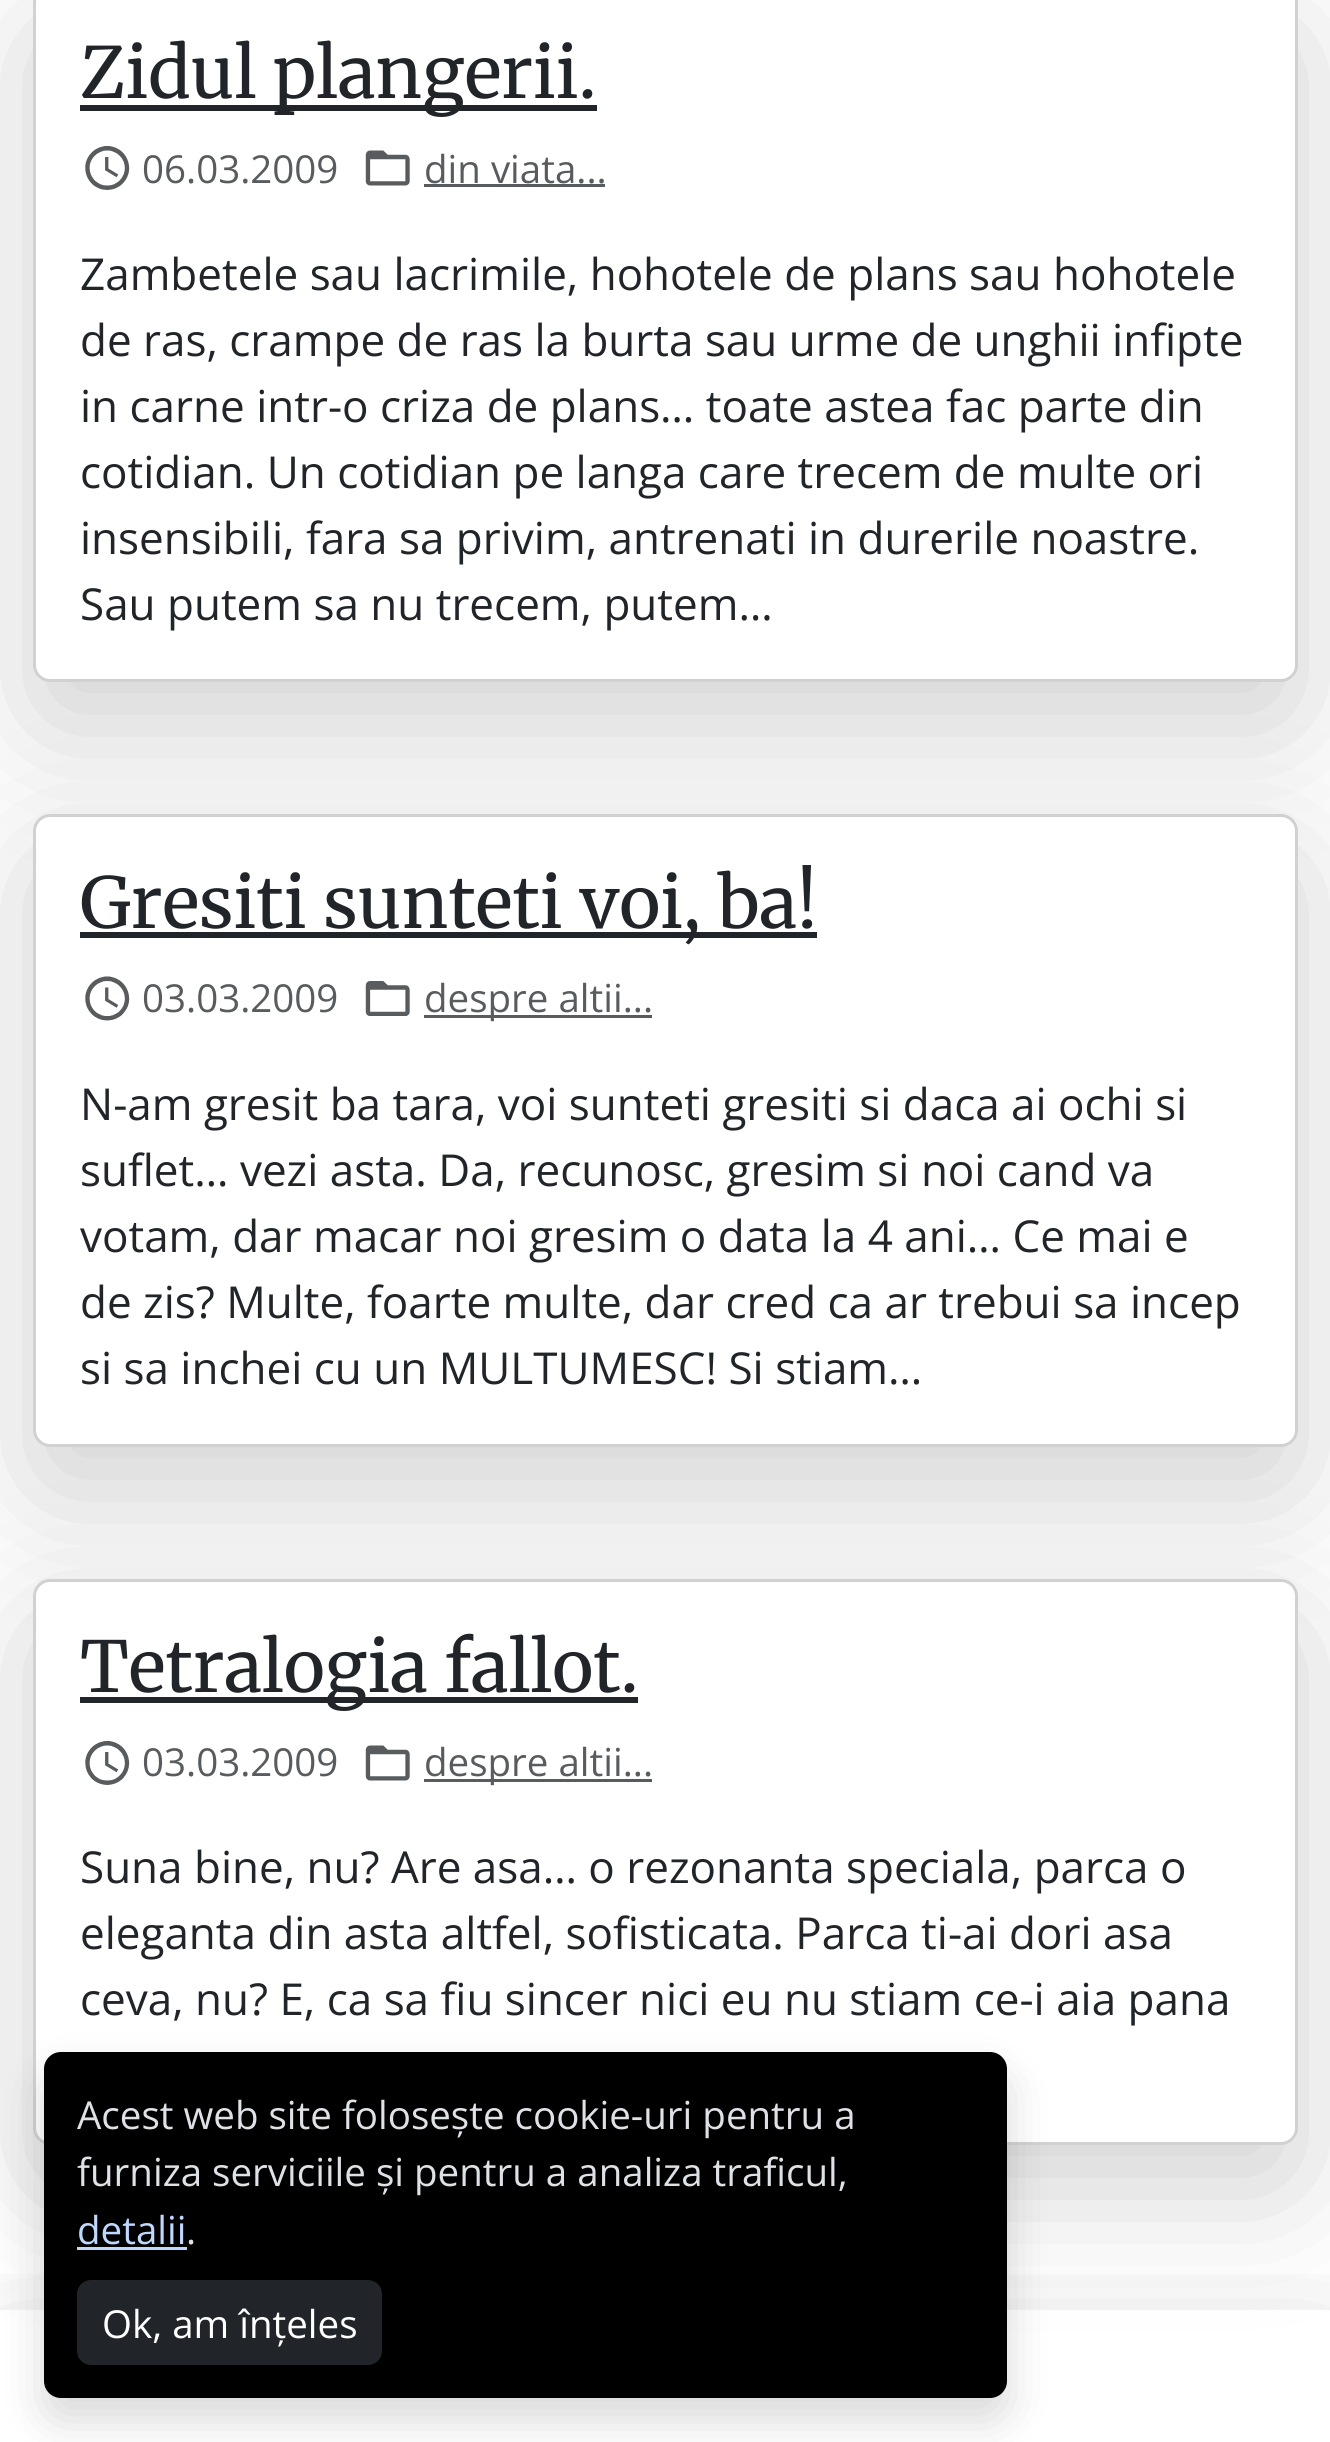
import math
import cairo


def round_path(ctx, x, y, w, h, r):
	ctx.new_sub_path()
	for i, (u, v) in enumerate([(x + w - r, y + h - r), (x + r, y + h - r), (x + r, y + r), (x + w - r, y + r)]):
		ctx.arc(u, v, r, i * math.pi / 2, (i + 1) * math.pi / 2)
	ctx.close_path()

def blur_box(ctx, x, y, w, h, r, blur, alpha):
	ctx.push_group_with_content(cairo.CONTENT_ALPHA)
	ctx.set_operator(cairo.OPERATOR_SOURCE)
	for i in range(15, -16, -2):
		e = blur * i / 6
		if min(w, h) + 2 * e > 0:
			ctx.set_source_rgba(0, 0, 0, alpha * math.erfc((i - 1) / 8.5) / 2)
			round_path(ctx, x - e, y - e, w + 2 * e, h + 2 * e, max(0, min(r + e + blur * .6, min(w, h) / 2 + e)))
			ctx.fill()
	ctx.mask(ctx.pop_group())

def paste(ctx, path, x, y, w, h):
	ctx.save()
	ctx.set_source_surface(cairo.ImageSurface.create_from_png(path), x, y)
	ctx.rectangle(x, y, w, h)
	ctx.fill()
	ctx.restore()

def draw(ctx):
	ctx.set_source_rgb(1, 1, 1)
	ctx.paint()
	ctx.set_source_rgb(0, 0, 0)
	blur_box(ctx, 33, 30, 1265, 696, 17, 66, 0.18)
	ctx.set_source_rgb(1, 1, 1)
	round_path(ctx, 33, -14, 1265, 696, 17)
	ctx.fill()
	round_path(ctx, 34.5, -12.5, 1262, 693, 15.5)
	ctx.set_source_rgba(0, 0, 0, 0.18)
	ctx.set_line_width(3)
	ctx.stroke()
	ctx.set_source_rgb(0.129, 0.145, 0.161)
	ctx.rectangle(80, 105, 517, 6)
	ctx.fill()
	ctx.select_font_face('Merriweather')
	ctx.set_font_size(70.25)
	ctx.move_to(80, 98)
	ctx.show_text('Zidul plangerii.')
	paste(ctx, 'media/1.png', 85, 146, 45, 44)
	ctx.select_font_face('Open Sans')
	ctx.set_font_size(38.5)
	ctx.set_source_rgb(0.349, 0.361, 0.373)
	ctx.move_to(142, 183)
	ctx.show_text('06.03.2009')
	paste(ctx, 'media/2.png', 365, 150, 45, 36)
	ctx.move_to(424, 183)
	ctx.show_text('din viata...')
	ctx.rectangle(424, 184, 181, 3)
	ctx.fill()
	ctx.set_font_size(44)
	ctx.set_source_rgb(0.129, 0.145, 0.161)
	for x, y, s in [
		(80, 290, 'Zambetele sau lacrimile, hohotele de plans sau hohotele'),
		(80, 356, 'de ras, crampe de ras la burta sau urme de unghii infipte'),
		(80, 422, 'in carne intr-o criza de plans… toate astea fac parte din'),
		(80, 488, 'cotidian. Un cotidian pe langa care trecem de multe ori'),
		(80, 554, 'insensibili, fara sa privim, antrenati in durerile noastre.'),
		(80, 620, 'Sau putem sa nu trecem, putem…'),
	]:
		ctx.move_to(x, y)
		ctx.show_text(s)
	ctx.set_source_rgb(0, 0, 0)
	blur_box(ctx, 33, 858, 1265, 633, 17, 66, 0.18)
	ctx.set_source_rgb(1, 1, 1)
	round_path(ctx, 33, 814, 1265, 633, 17)
	ctx.fill()
	round_path(ctx, 34.5, 815.5, 1262, 630, 15.5)
	ctx.set_source_rgba(0, 0, 0, 0.18)
	ctx.stroke()
	ctx.set_source_rgb(0.129, 0.145, 0.161)
	ctx.rectangle(80, 932, 737, 6)
	ctx.fill()
	ctx.select_font_face('Merriweather')
	ctx.set_font_size(70.25)
	ctx.move_to(80, 928)
	ctx.show_text('Gresiti sunteti voi, ba!')
	paste(ctx, 'media/3.png', 85, 976, 45, 45)
	ctx.select_font_face('Open Sans')
	ctx.set_font_size(38.5)
	ctx.set_source_rgb(0.349, 0.361, 0.373)
	ctx.move_to(142, 1012)
	ctx.show_text('03.03.2009')
	paste(ctx, 'media/4.png', 365, 981, 45, 35)
	ctx.rectangle(424, 1015, 228, 3)
	ctx.fill()
	ctx.move_to(424, 1012)
	ctx.show_text('despre altii...')
	ctx.set_font_size(44)
	ctx.set_source_rgb(0.129, 0.145, 0.161)
	for x, y, s in [
		(80, 1120, 'N-am gresit ba tara, voi sunteti gresiti si daca ai ochi si'),
		(80, 1186, 'suflet… vezi asta. Da, recunosc, gresim si noi cand va'),
		(80, 1252, 'votam, dar macar noi gresim o data la 4 ani… Ce mai e'),
		(80, 1318, 'de zis? Multe, foarte multe, dar cred ca ar trebui sa incep'),
		(80, 1384, 'si sa inchei cu un MULTUMESC! Si stiam…'),
	]:
		ctx.move_to(x, y)
		ctx.show_text(s)
	ctx.set_source_rgb(0, 0, 0)
	blur_box(ctx, 33, 1623, 1265, 566, 17, 66, 0.18)
	ctx.set_source_rgb(1, 1, 1)
	round_path(ctx, 33, 1579, 1265, 566, 17)
	ctx.fill()
	round_path(ctx, 34.5, 1580.5, 1262, 563, 15.5)
	ctx.set_source_rgba(0, 0, 0, 0.18)
	ctx.stroke()
	ctx.set_source_rgb(0.129, 0.145, 0.161)
	ctx.rectangle(80, 1697, 558, 6)
	ctx.fill()
	ctx.select_font_face('Merriweather')
	ctx.set_font_size(70.25)
	ctx.move_to(80, 1692)
	ctx.show_text('Tetralogia fallot.')
	paste(ctx, 'media/5.png', 85, 1741, 45, 44)
	ctx.select_font_face('Open Sans')
	ctx.set_font_size(38.5)
	ctx.set_source_rgb(0.349, 0.361, 0.373)
	ctx.move_to(142, 1776)
	ctx.show_text('03.03.2009')
	paste(ctx, 'media/6.png', 365, 1745, 45, 36)
	ctx.rectangle(424, 1779, 228, 3)
	ctx.fill()
	ctx.move_to(424, 1776)
	ctx.show_text('despre altii...')
	ctx.set_font_size(44)
	ctx.set_source_rgb(0.129, 0.145, 0.161)
	for x, y, s in [
		(80, 1883, 'Suna bine, nu? Are asa… o rezonanta speciala, parca o'),
		(80, 1949, 'eleganta din asta altfel, sofisticata. Parca ti-ai dori asa'),
		(80, 2015, 'ceva, nu? E, ca sa fiu sincer nici eu nu stiam ce-i aia pana'),
	]:
		ctx.move_to(x, y)
		ctx.show_text(s)
	ctx.set_source_rgb(0, 0, 0)
	blur_box(ctx, 44, 2074, 963, 346, 17, 22, 0.15)
	ctx.save()
	ctx.rectangle(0, 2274, 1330, 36)
	ctx.clip()
	blur_box(ctx, 0, 2354, 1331, 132, 0, 66, 0.18)
	ctx.restore()
	ctx.set_source_rgb(0, 0, 0)
	round_path(ctx, 44, 2052, 963, 346, 17)
	ctx.fill()
	ctx.set_font_size(38.5)
	ctx.set_source_rgb(0.871, 0.886, 0.902)
	ctx.move_to(77, 2129)
	ctx.show_text('Acest web site folosește cookie-uri pentru a')
	ctx.move_to(77, 2186)
	ctx.show_text('furniza serviciile și pentru a analiza traficul,')
	ctx.set_source_rgb(0.745, 0.847, 0.996)
	ctx.move_to(77, 2244)
	ctx.show_text('detalii')
	ctx.rectangle(77, 2247, 110, 3)
	ctx.fill()
	ctx.set_source_rgb(0.871, 0.886, 0.902)
	ctx.move_to(186, 2244)
	ctx.show_text('.')
	ctx.set_source_rgb(0.129, 0.145, 0.161)
	round_path(ctx, 78.5, 2281.5, 302, 82, 12.5)
	ctx.fill_preserve()
	ctx.stroke()
	ctx.set_source_rgb(1, 1, 1)
	ctx.move_to(102, 2338)
	ctx.show_text('Ok, am înțeles')


surface = cairo.ImageSurface(cairo.FORMAT_RGB24, 1330, 2442)
ctx = cairo.Context(surface)
options = cairo.FontOptions()
options.set_hint_metrics(cairo.HINT_METRICS_OFF)
options.set_hint_style(cairo.HINT_STYLE_NONE)
ctx.set_font_options(options)
ctx.set_miter_limit(4)
draw(ctx)
surface.write_to_png('image.png')
